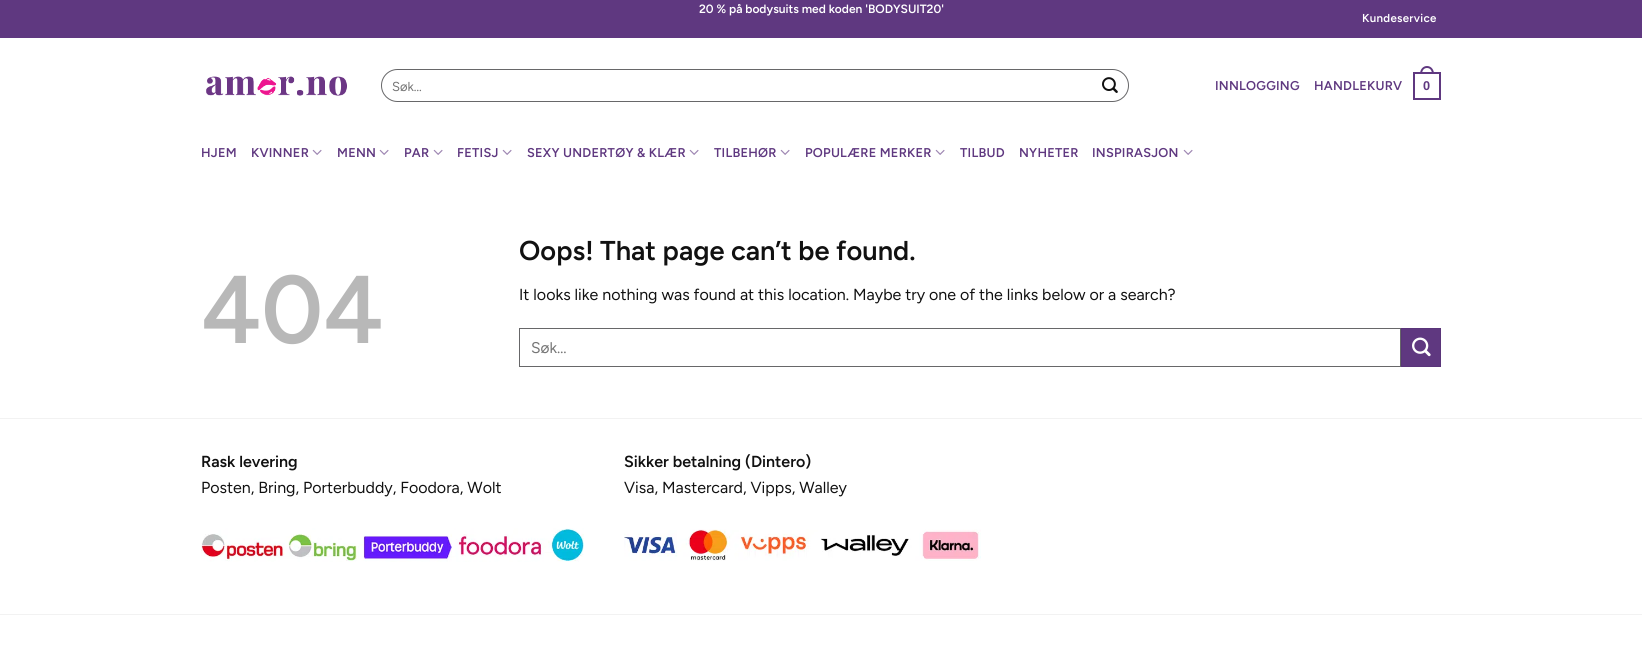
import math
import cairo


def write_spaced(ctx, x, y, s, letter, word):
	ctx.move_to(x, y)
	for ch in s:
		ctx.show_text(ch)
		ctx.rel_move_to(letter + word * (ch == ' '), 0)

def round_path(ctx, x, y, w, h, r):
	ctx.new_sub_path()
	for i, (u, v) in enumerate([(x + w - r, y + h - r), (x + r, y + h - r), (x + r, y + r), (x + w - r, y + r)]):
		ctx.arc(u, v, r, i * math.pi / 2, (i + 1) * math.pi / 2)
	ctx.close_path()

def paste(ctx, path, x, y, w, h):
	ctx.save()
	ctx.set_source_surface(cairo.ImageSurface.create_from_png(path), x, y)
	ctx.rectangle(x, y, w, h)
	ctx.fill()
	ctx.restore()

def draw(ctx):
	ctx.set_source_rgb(1, 1, 1)
	ctx.paint()
	ctx.set_source_rgb(0.373, 0.22, 0.502)
	ctx.rectangle(0, 0, 1642, 38)
	ctx.fill()
	ctx.select_font_face('Figtree SemiBold')
	ctx.set_font_size(12)
	ctx.set_source_rgb(1, 1, 1)
	ctx.move_to(699, 13)
	ctx.show_text('20 % på bodysuits med koden \'BODYSUIT20\'')
	ctx.set_font_size(11.5)
	write_spaced(ctx, 1362, 22, 'Kundeservice', 0.3, 0)
	paste(ctx, 'media/1.png', 206, 76, 141, 20)
	round_path(ctx, 381.5, 69.5, 747, 32, 16)
	ctx.set_source_rgb(0.404, 0.404, 0.412)
	ctx.set_line_width(1)
	ctx.stroke()
	ctx.select_font_face('Figtree')
	ctx.set_font_size(13)
	ctx.set_source_rgb(0.459, 0.459, 0.459)
	ctx.move_to(392, 91)
	ctx.show_text('Søk…')
	paste(ctx, 'media/2.png', 1102, 77, 16, 16)
	ctx.select_font_face('Figtree SemiBold')
	ctx.set_font_size(12.75)
	ctx.set_source_rgb(0.373, 0.22, 0.502)
	write_spaced(ctx, 1215, 90, 'INNLOGGING', 0.25, 0)
	write_spaced(ctx, 1314, 90, 'HANDLEKURV', 0.25, 0)
	ctx.rectangle(1414, 73, 26, 26)
	ctx.set_line_width(2)
	ctx.stroke()
	ctx.set_fill_rule(cairo.FILL_RULE_EVEN_ODD)
	ctx.new_path()
	ctx.move_to(1427, 66)
	ctx.curve_to(1431.5, 66, 1434, 70, 1434, 74)
	ctx.line_to(1420, 74)
	ctx.curve_to(1420, 70, 1422.5, 66, 1427, 66)
	ctx.close_path()
	ctx.move_to(1427, 68)
	ctx.curve_to(1430.5, 68, 1432, 71, 1432, 74)
	ctx.line_to(1422, 74)
	ctx.curve_to(1422, 71, 1423.5, 68, 1427, 68)
	ctx.close_path()
	ctx.fill()
	ctx.select_font_face('Liberation Sans', cairo.FONT_SLANT_NORMAL, cairo.FONT_WEIGHT_BOLD)
	write_spaced(ctx, 1423, 90, '0', 0.25, 0)
	ctx.select_font_face('Figtree SemiBold')
	write_spaced(ctx, 201, 157, 'HJEM', 0.25, 0)
	write_spaced(ctx, 251, 157, 'KVINNER', 0.25, 0)
	paste(ctx, 'media/3.png', 312, 149, 10, 6)
	write_spaced(ctx, 337, 157, 'MENN', 0.25, 0)
	paste(ctx, 'media/3.png', 379, 149, 10, 6)
	write_spaced(ctx, 404, 157, 'PAR', 0.25, 0)
	paste(ctx, 'media/3.png', 433, 149, 10, 6)
	write_spaced(ctx, 457, 157, 'FETISJ', 0.25, 0)
	paste(ctx, 'media/3.png', 502, 149, 10, 6)
	write_spaced(ctx, 527, 157, 'SEXY UNDERTØY & KLÆR', 0.25, 0)
	paste(ctx, 'media/3.png', 689, 149, 10, 6)
	write_spaced(ctx, 714, 157, 'TILBEHØR', 0.25, 0)
	paste(ctx, 'media/3.png', 780, 149, 10, 6)
	write_spaced(ctx, 805, 157, 'POPULÆRE MERKER', 0.25, 0)
	paste(ctx, 'media/3.png', 935, 149, 10, 6)
	for x, y, s in [
		(960, 157, 'TILBUD'),
		(1019, 157, 'NYHETER'),
		(1092, 157, 'INSPIRASJON'),
	]:
		write_spaced(ctx, x, y, s, 0.25, 0)
	paste(ctx, 'media/3.png', 1183, 149, 10, 6)
	ctx.set_font_size(96)
	ctx.set_source_rgb(0.722, 0.722, 0.722)
	ctx.move_to(201, 343)
	ctx.show_text('404')
	ctx.set_font_size(27.25)
	ctx.set_source_rgb(0.067, 0.067, 0.067)
	ctx.move_to(519, 260)
	ctx.show_text('Oops! That page can’t be found.')
	ctx.select_font_face('Figtree')
	ctx.set_font_size(16)
	ctx.move_to(519, 300)
	ctx.show_text('It looks like nothing was found at this location. Maybe try one of the links below or a search?')
	ctx.rectangle(519.5, 328.5, 881, 38)
	ctx.set_source_rgb(0.404, 0.404, 0.412)
	ctx.set_line_width(1)
	ctx.stroke()
	ctx.set_font_size(15.5)
	ctx.set_source_rgb(0.459, 0.459, 0.459)
	ctx.move_to(531, 353)
	ctx.show_text('Søk…')
	ctx.set_source_rgb(0.373, 0.22, 0.502)
	ctx.rectangle(1401.5, 328.5, 39, 38)
	ctx.fill_preserve()
	ctx.set_source_rgb(0.353, 0.208, 0.478)
	ctx.stroke()
	paste(ctx, 'media/4.png', 1412, 337, 19, 20)
	ctx.set_source_rgb(0.949, 0.949, 0.949)
	ctx.rectangle(0, 418, 1642, 1)
	ctx.fill()
	ctx.select_font_face('Figtree SemiBold')
	ctx.set_font_size(16)
	ctx.set_source_rgb(0.067, 0.067, 0.067)
	ctx.move_to(201, 467)
	ctx.show_text('Rask levering')
	ctx.select_font_face('Figtree')
	ctx.move_to(201, 493)
	ctx.show_text('Posten, Bring, Porterbuddy, Foodora, Wolt')
	paste(ctx, 'media/5.png', 201, 528, 383, 34)
	ctx.select_font_face('Figtree SemiBold')
	ctx.move_to(624, 467)
	ctx.show_text('Sikker betalning (Dintero)')
	ctx.select_font_face('Figtree')
	ctx.move_to(624, 493)
	ctx.show_text('Visa, Mastercard, Vipps, Walley')
	paste(ctx, 'media/6.png', 624, 529, 357, 32)
	ctx.set_source_rgb(0.949, 0.949, 0.949)
	ctx.rectangle(0, 614, 1642, 1)
	ctx.fill()


surface = cairo.ImageSurface(cairo.FORMAT_RGB24, 1642, 655)
ctx = cairo.Context(surface)
options = cairo.FontOptions()
options.set_hint_metrics(cairo.HINT_METRICS_OFF)
options.set_hint_style(cairo.HINT_STYLE_NONE)
ctx.set_font_options(options)
ctx.set_miter_limit(4)
draw(ctx)
surface.write_to_png('image.png')
